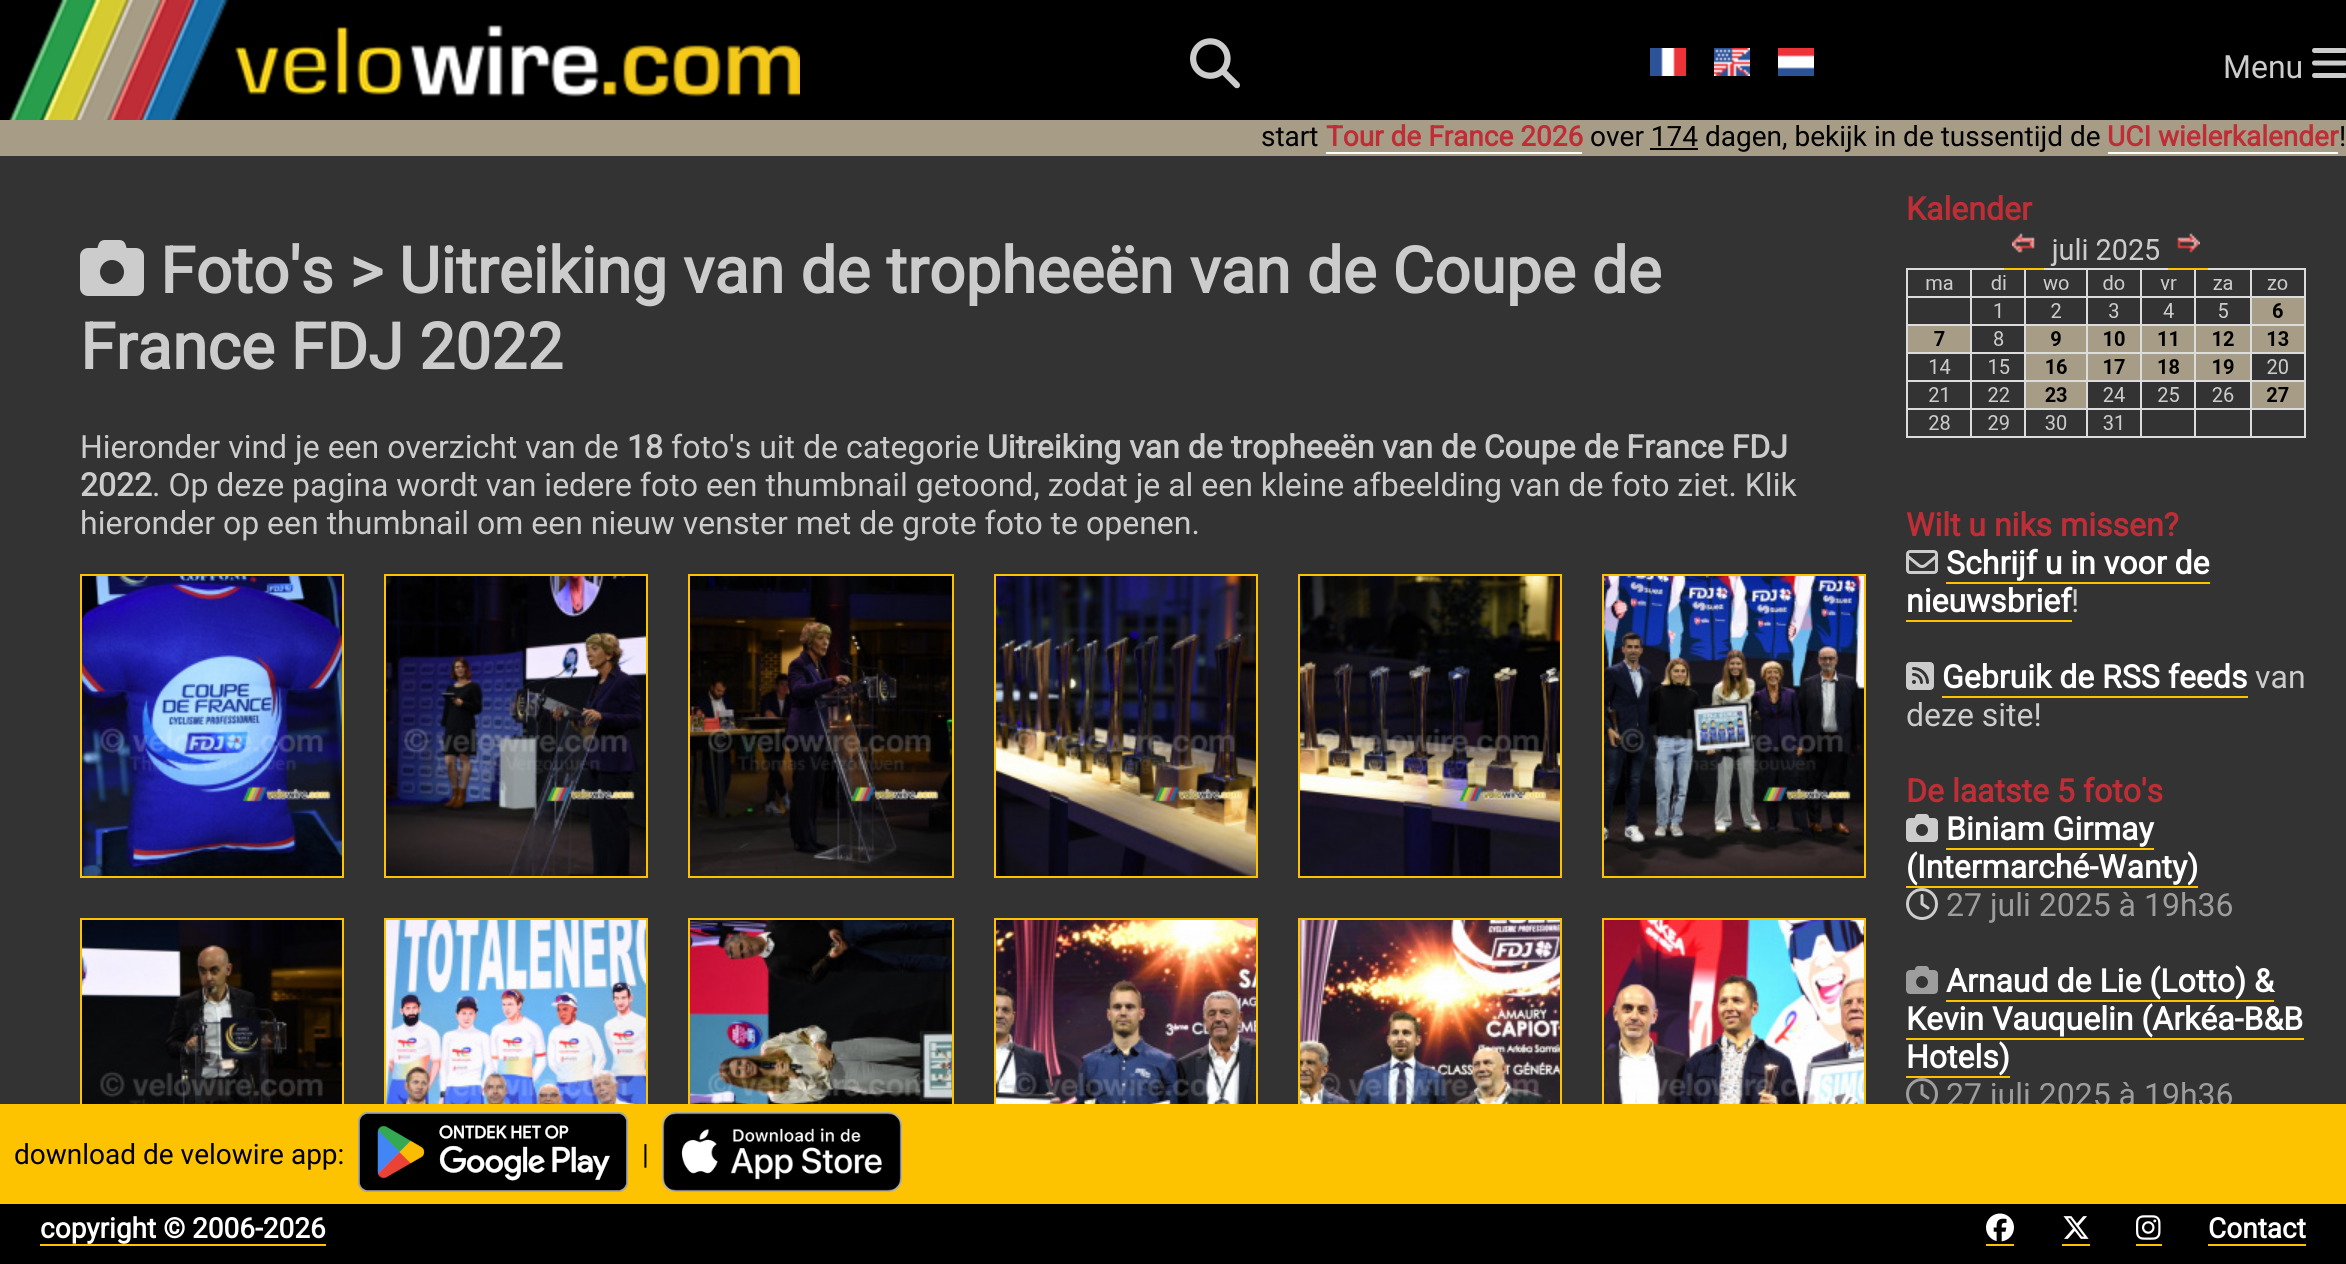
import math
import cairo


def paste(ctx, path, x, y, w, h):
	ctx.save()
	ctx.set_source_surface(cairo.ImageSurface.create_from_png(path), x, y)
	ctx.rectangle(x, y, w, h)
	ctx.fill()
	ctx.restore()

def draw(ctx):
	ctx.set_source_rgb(0.2, 0.2, 0.2)
	ctx.paint()
	ctx.set_source_rgb(0, 0, 0)
	ctx.rectangle(0, 0, 2346, 120)
	ctx.fill()
	paste(ctx, 'media/1.png', 9, 0, 791, 120)
	paste(ctx, 'media/2.png', 1190, 38, 50, 51)
	paste(ctx, 'media/3.png', 1650, 48, 36, 28)
	paste(ctx, 'media/4.png', 1714, 48, 36, 28)
	paste(ctx, 'media/5.png', 1778, 48, 36, 28)
	ctx.select_font_face('Roboto')
	ctx.set_font_size(32)
	ctx.set_source_rgb(0.8, 0.8, 0.8)
	ctx.move_to(2223, 78)
	ctx.show_text('Menu')
	paste(ctx, 'media/6.png', 2312, 48, 34, 30)
	ctx.set_source_rgb(0.655, 0.616, 0.525)
	ctx.rectangle(0, 120, 2346, 36)
	ctx.fill()
	ctx.set_font_size(28)
	ctx.set_source_rgb(0, 0, 0)
	ctx.move_to(1261, 146)
	ctx.show_text('start')
	ctx.select_font_face('Roboto', cairo.FONT_SLANT_NORMAL, cairo.FONT_WEIGHT_BOLD)
	ctx.set_source_rgb(0.749, 0.176, 0.212)
	ctx.move_to(1326, 146)
	ctx.show_text('Tour de France 2026')
	ctx.set_source_rgb(1, 1, 1)
	ctx.rectangle(1326, 152, 256, 2)
	ctx.fill()
	ctx.select_font_face('Roboto')
	ctx.set_source_rgb(0, 0, 0)
	ctx.move_to(1590, 146)
	ctx.show_text('over 174 dagen, bekijk in de tussentijd de')
	ctx.select_font_face('Roboto', cairo.FONT_SLANT_NORMAL, cairo.FONT_WEIGHT_BOLD)
	ctx.set_source_rgb(0.749, 0.176, 0.212)
	ctx.move_to(2107, 146)
	ctx.show_text('UCI wielerkalender')
	ctx.set_source_rgb(1, 1, 1)
	ctx.rectangle(2108, 152, 230, 2)
	ctx.fill()
	ctx.select_font_face('Roboto')
	ctx.set_source_rgb(0, 0, 0)
	ctx.move_to(2339, 146)
	ctx.show_text('!')
	ctx.rectangle(1650, 148, 48, 2)
	ctx.fill()
	ctx.rectangle(81, 919, 262, 302)
	ctx.set_source_rgb(0.992, 0.765, 0)
	ctx.stroke()
	ctx.rectangle(385, 919, 262, 302)
	ctx.stroke()
	ctx.rectangle(689, 919, 264, 302)
	ctx.stroke()
	ctx.rectangle(995, 919, 262, 302)
	ctx.stroke()
	ctx.rectangle(1299, 919, 262, 302)
	ctx.stroke()
	ctx.rectangle(1603, 919, 262, 302)
	ctx.stroke()
	ctx.set_font_size(32)
	ctx.set_source_rgb(0.616, 0.616, 0.616)
	ctx.move_to(1946, 1106)
	ctx.show_text('27 juli 2025 à 19h36')
	ctx.set_source_rgb(0.992, 0.765, 0)
	ctx.rectangle(0, 1104, 2346, 100)
	ctx.fill()
	ctx.set_font_size(28)
	ctx.set_source_rgb(0, 0, 0)
	ctx.move_to(14, 1164)
	ctx.show_text('download de velowire app:')
	paste(ctx, 'media/7.png', 358, 1112, 270, 80)
	ctx.move_to(642, 1164)
	ctx.show_text('|')
	paste(ctx, 'media/8.png', 662, 1112, 240, 80)
	paste(ctx, 'media/9.png', 80, 240, 64, 56)
	ctx.select_font_face('Roboto', cairo.FONT_SLANT_NORMAL, cairo.FONT_WEIGHT_BOLD)
	ctx.set_font_size(64)
	ctx.set_source_rgb(0.8, 0.8, 0.8)
	ctx.move_to(160, 293)
	ctx.show_text('Foto\'s > Uitreiking van de tropheeën van de Coupe de')
	ctx.move_to(80, 369)
	ctx.show_text('France FDJ 2022')
	ctx.select_font_face('Roboto')
	ctx.set_font_size(32)
	ctx.move_to(80, 458)
	ctx.show_text('Hieronder vind je een overzicht van de')
	ctx.select_font_face('Roboto', cairo.FONT_SLANT_NORMAL, cairo.FONT_WEIGHT_BOLD)
	ctx.move_to(627, 458)
	ctx.show_text('18')
	ctx.select_font_face('Roboto')
	ctx.move_to(671, 458)
	ctx.show_text('foto\'s uit de categorie')
	ctx.select_font_face('Roboto', cairo.FONT_SLANT_NORMAL, cairo.FONT_WEIGHT_BOLD)
	ctx.move_to(987, 458)
	ctx.show_text('Uitreiking van de tropheeën van de Coupe de France FDJ')
	ctx.move_to(80, 496)
	ctx.show_text('2022')
	ctx.select_font_face('Roboto')
	ctx.move_to(152, 496)
	ctx.show_text('. Op deze pagina wordt van iedere foto een thumbnail getoond, zodat je al een kleine afbeelding van de foto ziet. Klik')
	ctx.move_to(80, 534)
	ctx.show_text('hieronder op een thumbnail om een nieuw venster met de grote foto te openen.')
	ctx.rectangle(81, 575, 262, 302)
	ctx.set_source_rgb(0.992, 0.765, 0)
	ctx.stroke()
	paste(ctx, 'media/10.png', 82, 576, 260, 300)
	ctx.rectangle(385, 575, 262, 302)
	ctx.stroke()
	paste(ctx, 'media/11.png', 386, 576, 260, 300)
	ctx.rectangle(689, 575, 264, 302)
	ctx.stroke()
	paste(ctx, 'media/12.png', 690, 576, 262, 300)
	ctx.rectangle(995, 575, 262, 302)
	ctx.stroke()
	paste(ctx, 'media/13.png', 996, 576, 260, 300)
	ctx.rectangle(1299, 575, 262, 302)
	ctx.stroke()
	paste(ctx, 'media/14.png', 1300, 576, 260, 300)
	ctx.rectangle(1603, 575, 262, 302)
	ctx.stroke()
	paste(ctx, 'media/15.png', 1604, 576, 260, 300)
	paste(ctx, 'media/16.png', 82, 920, 260, 184)
	paste(ctx, 'media/17.png', 386, 920, 260, 184)
	paste(ctx, 'media/18.png', 690, 920, 262, 184)
	paste(ctx, 'media/19.png', 996, 920, 260, 184)
	paste(ctx, 'media/20.png', 1300, 920, 260, 184)
	paste(ctx, 'media/21.png', 1604, 920, 260, 184)
	ctx.select_font_face('Roboto', cairo.FONT_SLANT_NORMAL, cairo.FONT_WEIGHT_BOLD)
	ctx.set_source_rgb(0.749, 0.176, 0.212)
	ctx.move_to(1906, 220)
	ctx.show_text('Kalender')
	paste(ctx, 'media/22.png', 1906, 233, 400, 205)
	ctx.move_to(1906, 536)
	ctx.show_text('Wilt u niks missen?')
	paste(ctx, 'media/23.png', 1906, 550, 32, 24)
	ctx.set_source_rgb(1, 1, 1)
	ctx.move_to(1946, 574)
	ctx.show_text('Schrijf u in voor de')
	ctx.move_to(1906, 612)
	ctx.show_text('nieuwsbrief')
	ctx.set_source_rgb(0.992, 0.765, 0)
	ctx.rectangle(1946, 582, 264, 2)
	ctx.fill()
	ctx.rectangle(1906, 620, 166, 2)
	ctx.fill()
	ctx.select_font_face('Roboto')
	ctx.set_source_rgb(0.8, 0.8, 0.8)
	ctx.move_to(2071, 612)
	ctx.show_text('!')
	paste(ctx, 'media/24.png', 1906, 662, 28, 28)
	ctx.select_font_face('Roboto', cairo.FONT_SLANT_NORMAL, cairo.FONT_WEIGHT_BOLD)
	ctx.set_source_rgb(1, 1, 1)
	ctx.move_to(1942, 688)
	ctx.show_text('Gebruik de RSS feeds')
	ctx.set_source_rgb(0.992, 0.765, 0)
	ctx.rectangle(1942, 696, 306, 2)
	ctx.fill()
	ctx.select_font_face('Roboto')
	ctx.set_source_rgb(0.8, 0.8, 0.8)
	ctx.move_to(2255, 688)
	ctx.show_text('van')
	ctx.move_to(1906, 726)
	ctx.show_text('deze site!')
	ctx.select_font_face('Roboto', cairo.FONT_SLANT_NORMAL, cairo.FONT_WEIGHT_BOLD)
	ctx.set_source_rgb(0.749, 0.176, 0.212)
	ctx.move_to(1906, 802)
	ctx.show_text('De laatste 5 foto\'s')
	paste(ctx, 'media/25.png', 1906, 814, 32, 28)
	ctx.set_source_rgb(1, 1, 1)
	ctx.move_to(1946, 840)
	ctx.show_text('Biniam Girmay')
	ctx.set_source_rgb(0.992, 0.765, 0)
	ctx.rectangle(1946, 848, 208, 2)
	ctx.fill()
	ctx.set_source_rgb(1, 1, 1)
	ctx.move_to(1906, 878)
	ctx.show_text('(Intermarché-Wanty)')
	ctx.set_source_rgb(0.992, 0.765, 0)
	ctx.rectangle(1906, 886, 292, 2)
	ctx.fill()
	paste(ctx, 'media/26.png', 1906, 888, 32, 32)
	ctx.select_font_face('Roboto')
	ctx.set_source_rgb(0.616, 0.616, 0.616)
	ctx.move_to(1946, 916)
	ctx.show_text('27 juli 2025 à 19h36')
	paste(ctx, 'media/27.png', 1906, 966, 32, 28)
	ctx.select_font_face('Roboto', cairo.FONT_SLANT_NORMAL, cairo.FONT_WEIGHT_BOLD)
	ctx.set_source_rgb(1, 1, 1)
	ctx.move_to(1946, 992)
	ctx.show_text('Arnaud de Lie (Lotto) &')
	ctx.set_source_rgb(0.992, 0.765, 0)
	ctx.rectangle(1946, 1000, 328, 2)
	ctx.fill()
	ctx.set_source_rgb(1, 1, 1)
	ctx.move_to(1906, 1030)
	ctx.show_text('Kevin Vauquelin (Arkéa-B&B')
	ctx.set_source_rgb(0.992, 0.765, 0)
	ctx.rectangle(1906, 1038, 398, 2)
	ctx.fill()
	ctx.set_source_rgb(1, 1, 1)
	ctx.move_to(1906, 1068)
	ctx.show_text('Hotels)')
	ctx.set_source_rgb(0.992, 0.765, 0)
	ctx.rectangle(1906, 1076, 104, 2)
	ctx.fill()
	paste(ctx, 'media/28.png', 1906, 1078, 32, 26)
	ctx.set_source_rgb(0, 0, 0)
	ctx.rectangle(0, 1204, 2346, 60)
	ctx.fill()
	ctx.set_font_size(28)
	ctx.set_source_rgb(1, 1, 1)
	ctx.move_to(40, 1238)
	ctx.show_text('copyright © 2006-2026')
	ctx.set_source_rgb(0.992, 0.765, 0)
	ctx.rectangle(40, 1244, 286, 2)
	ctx.fill()
	ctx.rectangle(1986, 1244, 28, 2)
	ctx.fill()
	paste(ctx, 'media/29.png', 1986, 1213, 28, 29)
	ctx.rectangle(2062, 1244, 28, 2)
	ctx.fill()
	paste(ctx, 'media/30.png', 2063, 1216, 26, 23)
	ctx.rectangle(2136, 1244, 26, 2)
	ctx.fill()
	paste(ctx, 'media/31.png', 2136, 1215, 25, 25)
	ctx.set_source_rgb(1, 1, 1)
	ctx.move_to(2208, 1238)
	ctx.show_text('Contact')
	ctx.set_source_rgb(0.992, 0.765, 0)
	ctx.rectangle(2208, 1244, 98, 2)
	ctx.fill()


surface = cairo.ImageSurface(cairo.FORMAT_RGB24, 2346, 1264)
ctx = cairo.Context(surface)
options = cairo.FontOptions()
options.set_hint_metrics(cairo.HINT_METRICS_OFF)
options.set_hint_style(cairo.HINT_STYLE_NONE)
ctx.set_font_options(options)
ctx.set_miter_limit(4)
draw(ctx)
surface.write_to_png('image.png')
